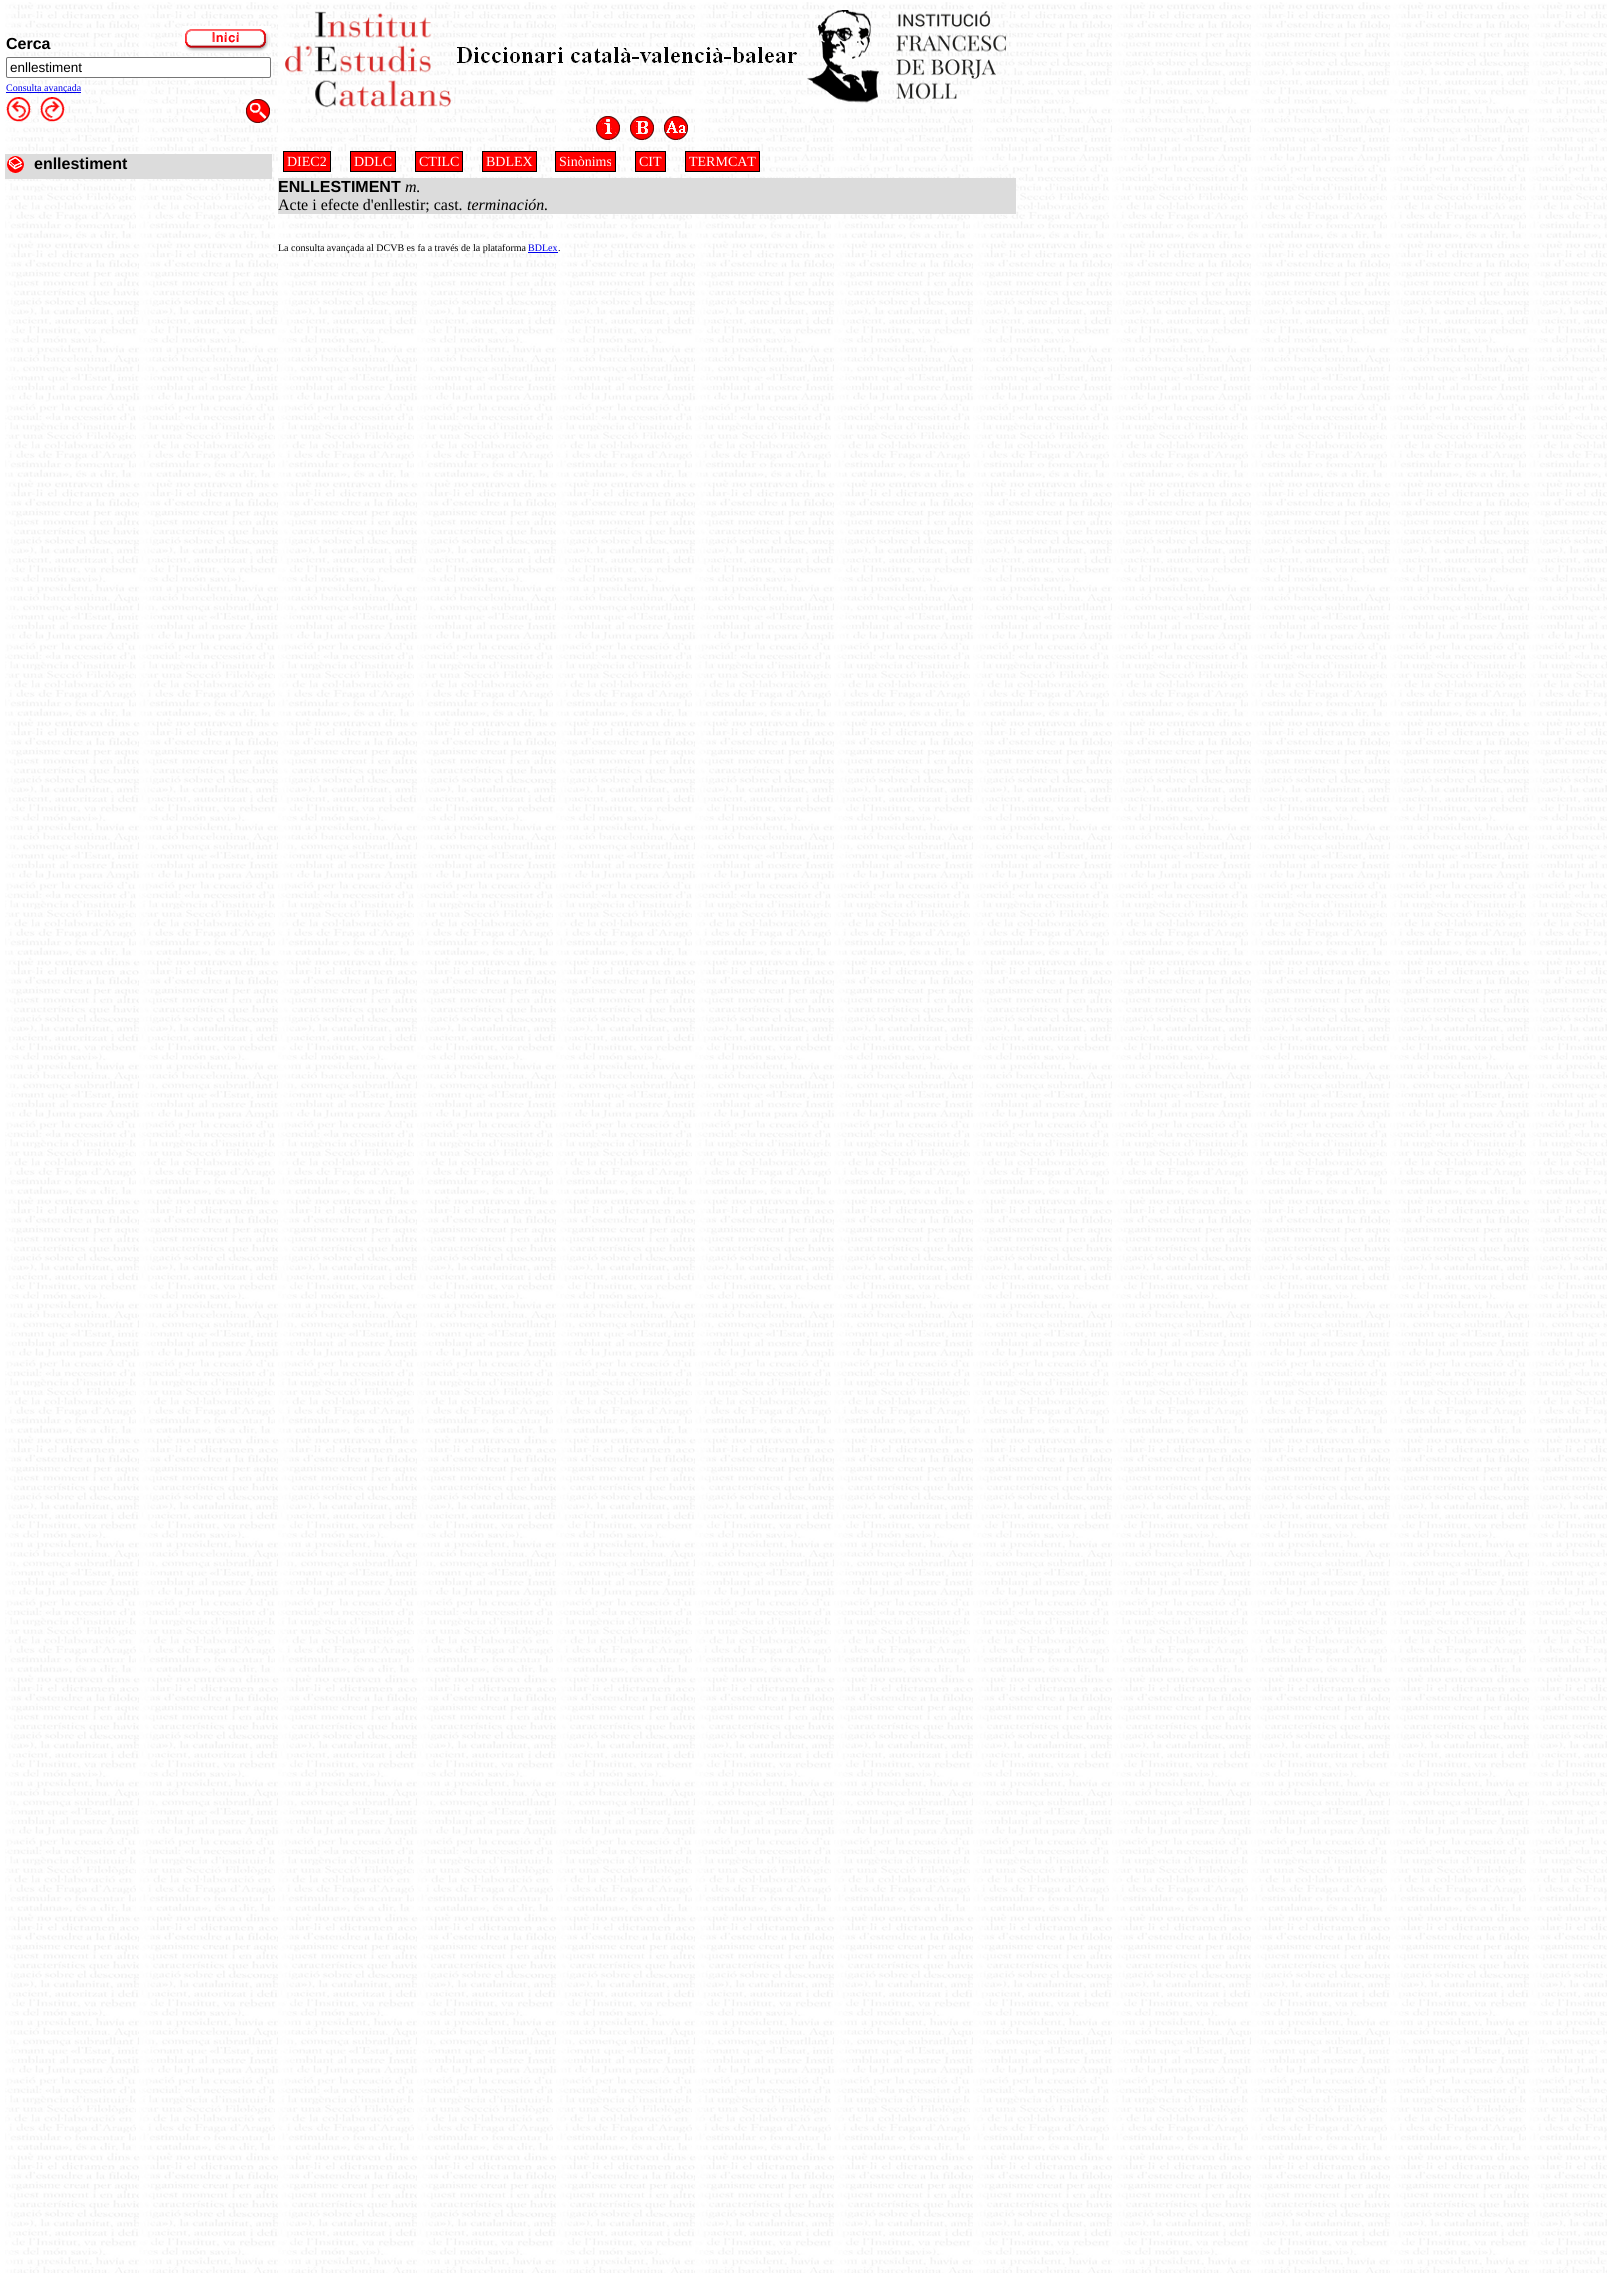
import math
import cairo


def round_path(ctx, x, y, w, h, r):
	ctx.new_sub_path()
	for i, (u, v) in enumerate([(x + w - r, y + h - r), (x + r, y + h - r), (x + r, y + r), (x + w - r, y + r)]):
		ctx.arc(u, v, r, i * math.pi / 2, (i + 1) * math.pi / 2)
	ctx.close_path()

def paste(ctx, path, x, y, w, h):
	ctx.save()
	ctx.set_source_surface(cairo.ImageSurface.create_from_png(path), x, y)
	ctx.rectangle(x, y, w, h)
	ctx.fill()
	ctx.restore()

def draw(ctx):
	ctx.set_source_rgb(1, 1, 1)
	ctx.paint()
	paste(ctx, 'media/1.png', 5, 2, 1602, 2271)
	ctx.set_source_rgb(1, 1, 1)
	ctx.rectangle(5, 2, 1014, 254)
	ctx.fill()
	paste(ctx, 'media/2.png', 5, 2, 1014, 254)
	ctx.select_font_face('Liberation Sans', cairo.FONT_SLANT_NORMAL, cairo.FONT_WEIGHT_BOLD)
	ctx.set_font_size(16)
	ctx.set_source_rgb(0, 0, 0)
	ctx.move_to(6, 49)
	ctx.show_text('Cerca')
	paste(ctx, 'media/3.png', 182, 26, 89, 27)
	ctx.set_source_rgb(1, 1, 1)
	round_path(ctx, 6.5, 57.5, 264, 20, 1.5)
	ctx.fill_preserve()
	ctx.set_source_rgb(0.463, 0.463, 0.463)
	ctx.set_line_width(1)
	ctx.stroke()
	ctx.select_font_face('Liberation Sans')
	ctx.set_font_size(13.5)
	ctx.set_source_rgb(0, 0, 0)
	ctx.move_to(10, 72)
	ctx.show_text('enllestiment')
	ctx.set_source_rgb(0, 0, 0.933)
	ctx.rectangle(6, 92, 75, 1)
	ctx.fill()
	ctx.select_font_face('Liberation Serif')
	ctx.set_font_size(10)
	ctx.move_to(6, 91)
	ctx.show_text('Consulta avançada')
	paste(ctx, 'media/4.png', 6, 97, 25, 25)
	paste(ctx, 'media/5.png', 40, 97, 25, 25)
	paste(ctx, 'media/6.png', 246, 99, 24, 24)
	paste(ctx, 'media/7.png', 284, 11, 167, 97)
	paste(ctx, 'media/8.png', 457, 47, 340, 16)
	paste(ctx, 'media/9.png', 807, 10, 199, 93)
	paste(ctx, 'media/10.png', 596, 116, 24, 24)
	paste(ctx, 'media/11.png', 630, 116, 24, 24)
	paste(ctx, 'media/12.png', 664, 116, 24, 24)
	ctx.set_source_rgb(0.863, 0.863, 0.863)
	ctx.rectangle(5, 154, 267, 25)
	ctx.fill()
	paste(ctx, 'media/13.png', 7, 156, 17, 17)
	ctx.select_font_face('Liberation Sans', cairo.FONT_SLANT_NORMAL, cairo.FONT_WEIGHT_BOLD)
	ctx.set_font_size(16)
	ctx.set_source_rgb(0, 0, 0)
	ctx.move_to(34, 169)
	ctx.show_text('enllestiment')
	ctx.set_source_rgb(1, 0, 0)
	ctx.rectangle(283.5, 151.5, 47, 20)
	ctx.fill_preserve()
	ctx.set_source_rgb(0, 0, 0)
	ctx.stroke()
	ctx.select_font_face('Liberation Serif')
	ctx.set_font_size(14)
	ctx.set_source_rgb(1, 1, 1)
	ctx.move_to(287, 166)
	ctx.show_text('DIEC2')
	ctx.set_source_rgb(1, 0, 0)
	ctx.rectangle(350.5, 151.5, 45, 20)
	ctx.fill_preserve()
	ctx.set_source_rgb(0, 0, 0)
	ctx.stroke()
	ctx.set_source_rgb(1, 1, 1)
	ctx.move_to(354, 166)
	ctx.show_text('DDLC')
	ctx.set_source_rgb(1, 0, 0)
	ctx.rectangle(415.5, 151.5, 47, 20)
	ctx.fill_preserve()
	ctx.set_source_rgb(0, 0, 0)
	ctx.stroke()
	ctx.set_source_rgb(1, 1, 1)
	ctx.move_to(419, 166)
	ctx.show_text('CTILC')
	ctx.set_source_rgb(1, 0, 0)
	ctx.rectangle(482.5, 151.5, 54, 20)
	ctx.fill_preserve()
	ctx.set_source_rgb(0, 0, 0)
	ctx.stroke()
	ctx.set_source_rgb(1, 1, 1)
	ctx.move_to(486, 166)
	ctx.show_text('BDLEX')
	ctx.set_source_rgb(1, 0, 0)
	ctx.rectangle(555.5, 151.5, 60, 20)
	ctx.fill_preserve()
	ctx.set_source_rgb(0, 0, 0)
	ctx.stroke()
	ctx.set_source_rgb(1, 1, 1)
	ctx.move_to(559, 166)
	ctx.show_text('Sinònims')
	ctx.set_source_rgb(1, 0, 0)
	ctx.rectangle(635.5, 151.5, 30, 20)
	ctx.fill_preserve()
	ctx.set_source_rgb(0, 0, 0)
	ctx.stroke()
	ctx.set_source_rgb(1, 1, 1)
	ctx.move_to(639, 166)
	ctx.show_text('CIT')
	ctx.set_source_rgb(1, 0, 0)
	ctx.rectangle(685.5, 151.5, 74, 20)
	ctx.fill_preserve()
	ctx.set_source_rgb(0, 0, 0)
	ctx.stroke()
	ctx.set_source_rgb(1, 1, 1)
	ctx.move_to(689, 166)
	ctx.show_text('TERMCAT')
	ctx.set_source_rgb(0.863, 0.863, 0.863)
	ctx.rectangle(278, 178, 738, 36)
	ctx.fill()
	ctx.select_font_face('Liberation Sans', cairo.FONT_SLANT_NORMAL, cairo.FONT_WEIGHT_BOLD)
	ctx.set_font_size(16)
	ctx.set_source_rgb(0, 0, 0)
	ctx.move_to(278, 192)
	ctx.show_text('ENLLESTIMENT')
	ctx.select_font_face('Liberation Serif', cairo.FONT_SLANT_ITALIC)
	ctx.move_to(405, 192)
	ctx.show_text('m.')
	ctx.select_font_face('Liberation Serif')
	ctx.move_to(278, 210)
	ctx.show_text('Acte i efecte d\'enllestir; cast.')
	ctx.select_font_face('Liberation Serif', cairo.FONT_SLANT_ITALIC)
	ctx.move_to(467, 210)
	ctx.show_text('terminación.')
	ctx.select_font_face('Liberation Serif')
	ctx.set_font_size(10)
	ctx.move_to(278, 251)
	ctx.show_text('La consulta avançada al DCVB es fa a través de la plataforma')
	ctx.set_source_rgb(0, 0, 0.933)
	ctx.move_to(528, 251)
	ctx.show_text('BDLex')
	ctx.rectangle(528, 252, 30, 1)
	ctx.fill()
	ctx.set_source_rgb(0, 0, 0)
	ctx.move_to(558, 251)
	ctx.show_text('.')


surface = cairo.ImageSurface(cairo.FORMAT_RGB24, 1607, 2273)
ctx = cairo.Context(surface)
options = cairo.FontOptions()
options.set_hint_metrics(cairo.HINT_METRICS_OFF)
options.set_hint_style(cairo.HINT_STYLE_NONE)
ctx.set_font_options(options)
ctx.set_miter_limit(4)
draw(ctx)
surface.write_to_png('image.png')
